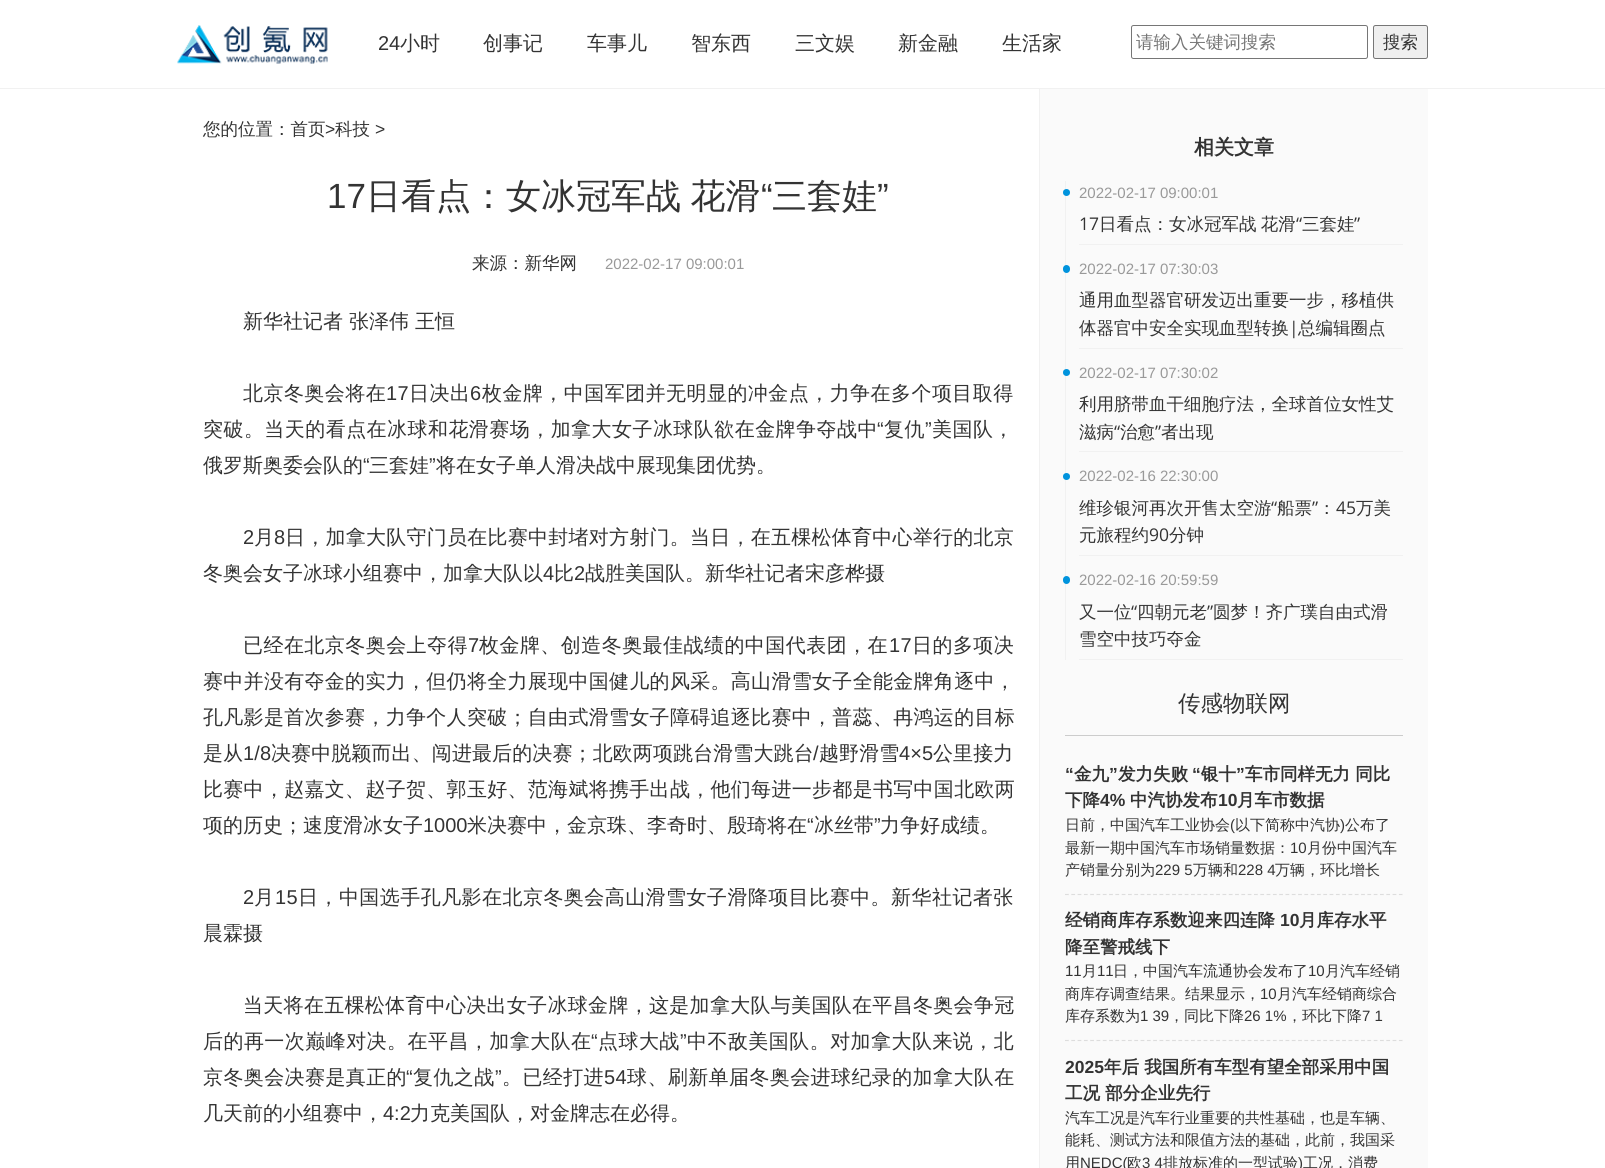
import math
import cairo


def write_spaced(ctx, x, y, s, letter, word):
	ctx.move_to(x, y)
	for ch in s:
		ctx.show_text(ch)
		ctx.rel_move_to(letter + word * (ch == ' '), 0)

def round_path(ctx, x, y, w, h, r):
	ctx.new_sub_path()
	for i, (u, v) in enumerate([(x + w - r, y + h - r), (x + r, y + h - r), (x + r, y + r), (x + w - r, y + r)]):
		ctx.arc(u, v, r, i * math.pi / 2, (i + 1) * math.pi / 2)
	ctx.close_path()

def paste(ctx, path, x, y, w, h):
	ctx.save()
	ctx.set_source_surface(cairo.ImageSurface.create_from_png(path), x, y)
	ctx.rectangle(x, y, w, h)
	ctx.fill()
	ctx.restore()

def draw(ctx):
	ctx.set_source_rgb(1, 1, 1)
	ctx.paint()
	ctx.set_source_rgb(0.945, 0.945, 0.945)
	ctx.rectangle(0, 88, 1605, 1)
	ctx.fill()
	paste(ctx, 'media/1.png', 177, 25, 151, 39)
	ctx.select_font_face('Liberation Sans')
	ctx.set_font_size(20)
	ctx.set_source_rgb(0.2, 0.2, 0.2)
	ctx.move_to(378, 50)
	ctx.show_text('24')
	ctx.select_font_face('WenQuanYi Zen Hei Medium')
	for x, y, s in [
		(400, 50, '小时'),
		(483, 50, '创事记'),
		(587, 50, '车事儿'),
		(691, 50, '智东西'),
		(795, 50, '三文娱'),
		(898, 50, '新金融'),
		(1002, 50, '生活家'),
	]:
		ctx.move_to(x, y)
		ctx.show_text(s)
	round_path(ctx, 1131.5, 25.5, 236, 33, 2)
	ctx.set_source_rgb(0.463, 0.463, 0.463)
	ctx.set_line_width(1)
	ctx.stroke()
	ctx.set_font_size(17.5)
	ctx.set_source_rgb(0.459, 0.459, 0.459)
	ctx.move_to(1136, 48)
	ctx.show_text('请输入关键词搜索')
	ctx.set_source_rgb(0.937, 0.937, 0.937)
	round_path(ctx, 1373.5, 25.5, 54, 33, 2)
	ctx.fill_preserve()
	ctx.set_source_rgb(0.463, 0.463, 0.463)
	ctx.stroke()
	ctx.set_source_rgb(0.2, 0.2, 0.2)
	ctx.move_to(1383, 48)
	ctx.show_text('搜索')
	ctx.set_source_rgb(0.945, 0.945, 0.945)
	ctx.rectangle(1039, 89, 1, 1079)
	ctx.fill()
	ctx.set_source_rgb(0.2, 0.2, 0.2)
	ctx.move_to(203, 135)
	ctx.show_text('您的位置：首页')
	ctx.select_font_face('Liberation Sans')
	ctx.move_to(325, 135)
	ctx.show_text('>')
	ctx.select_font_face('WenQuanYi Zen Hei Medium')
	ctx.move_to(335, 135)
	ctx.show_text('科技')
	ctx.select_font_face('Liberation Sans')
	ctx.move_to(375, 135)
	ctx.show_text('>')
	ctx.set_font_size(35)
	ctx.move_to(327, 208)
	ctx.show_text('17')
	ctx.select_font_face('WenQuanYi Zen Hei Medium')
	write_spaced(ctx, 366, 208, '日看点：女冰冠军战 花滑', 0, -1)
	ctx.select_font_face('Liberation Sans')
	ctx.move_to(761, 208)
	ctx.show_text('“')
	ctx.select_font_face('WenQuanYi Zen Hei Medium')
	ctx.move_to(772, 208)
	ctx.show_text('三套娃')
	ctx.select_font_face('Liberation Sans')
	ctx.move_to(877, 208)
	ctx.show_text('”')
	ctx.select_font_face('WenQuanYi Zen Hei Medium')
	ctx.set_font_size(17.5)
	ctx.move_to(472, 269)
	ctx.show_text('来源：新华网')
	ctx.select_font_face('Liberation Sans')
	ctx.set_font_size(15)
	ctx.set_source_rgb(0.6, 0.6, 0.6)
	ctx.move_to(605, 269)
	ctx.show_text('2022-02-17 09:00:01')
	ctx.select_font_face('WenQuanYi Zen Hei Medium')
	ctx.set_font_size(20)
	ctx.set_source_rgb(0.2, 0.2, 0.2)
	ctx.move_to(243, 328)
	ctx.show_text('新华社记者 张泽伟 王恒')
	write_spaced(ctx, 243, 400, '北京冬奥会将在', 0.45, 0)
	ctx.select_font_face('Liberation Sans')
	write_spaced(ctx, 386, 400, '17', 0.45, 0)
	ctx.select_font_face('WenQuanYi Zen Hei Medium')
	write_spaced(ctx, 409, 400, '日决出', 0.45, 0)
	ctx.select_font_face('Liberation Sans')
	write_spaced(ctx, 470, 400, '6', 0.45, 0)
	ctx.select_font_face('WenQuanYi Zen Hei Medium')
	write_spaced(ctx, 482, 400, '枚金牌，中国军团并无明显的冲金点，力争在多个项目取得', 0.45, 0)
	write_spaced(ctx, 203, 436, '突破。当天的看点在冰球和花滑赛场，加拿大女子冰球队欲在金牌争夺战中', 0.45, 0)
	ctx.select_font_face('Liberation Sans')
	write_spaced(ctx, 877, 436, '“', 0.45, 0)
	ctx.select_font_face('WenQuanYi Zen Hei Medium')
	write_spaced(ctx, 884, 436, '复仇', 0.45, 0)
	ctx.select_font_face('Liberation Sans')
	write_spaced(ctx, 925, 436, '”', 0.45, 0)
	ctx.select_font_face('WenQuanYi Zen Hei Medium')
	write_spaced(ctx, 932, 436, '美国队，', 0.45, 0)
	ctx.move_to(203, 472)
	ctx.show_text('俄罗斯奥委会队的')
	ctx.select_font_face('Liberation Sans')
	ctx.move_to(363, 472)
	ctx.show_text('“')
	ctx.select_font_face('WenQuanYi Zen Hei Medium')
	ctx.move_to(369, 472)
	ctx.show_text('三套娃')
	ctx.select_font_face('Liberation Sans')
	ctx.move_to(429, 472)
	ctx.show_text('”')
	ctx.select_font_face('WenQuanYi Zen Hei Medium')
	ctx.move_to(436, 472)
	ctx.show_text('将在女子单人滑决战中展现集团优势。')
	ctx.select_font_face('Liberation Sans')
	write_spaced(ctx, 243, 544, '2', 0.25, 0)
	ctx.select_font_face('WenQuanYi Zen Hei Medium')
	write_spaced(ctx, 254, 544, '月', 0.25, 0)
	ctx.select_font_face('Liberation Sans')
	write_spaced(ctx, 274, 544, '8', 0.25, 0)
	ctx.select_font_face('WenQuanYi Zen Hei Medium')
	write_spaced(ctx, 285, 544, '日，加拿大队守门员在比赛中封堵对方射门。当日，在五棵松体育中心举行的北京', 0.25, 0)
	ctx.move_to(203, 580)
	ctx.show_text('冬奥会女子冰球小组赛中，加拿大队以')
	ctx.select_font_face('Liberation Sans')
	ctx.move_to(543, 580)
	ctx.show_text('4')
	ctx.select_font_face('WenQuanYi Zen Hei Medium')
	ctx.move_to(554, 580)
	ctx.show_text('比')
	ctx.select_font_face('Liberation Sans')
	ctx.move_to(574, 580)
	ctx.show_text('2')
	ctx.select_font_face('WenQuanYi Zen Hei Medium')
	ctx.move_to(585, 580)
	ctx.show_text('战胜美国队。新华社记者宋彦桦摄')
	write_spaced(ctx, 243, 652, '已经在北京冬奥会上夺得', 0.45, 0)
	ctx.select_font_face('Liberation Sans')
	write_spaced(ctx, 468, 652, '7', 0.45, 0)
	ctx.select_font_face('WenQuanYi Zen Hei Medium')
	write_spaced(ctx, 479, 652, '枚金牌、创造冬奥最佳战绩的中国代表团，在', 0.45, 0)
	ctx.select_font_face('Liberation Sans')
	write_spaced(ctx, 889, 652, '17', 0.45, 0)
	ctx.select_font_face('WenQuanYi Zen Hei Medium')
	write_spaced(ctx, 912, 652, '日的多项决', 0.45, 0)
	write_spaced(ctx, 203, 688, '赛中并没有夺金的实力，但仍将全力展现中国健儿的风采。高山滑雪女子全能金牌角逐中，', 0.3, 0)
	write_spaced(ctx, 203, 724, '孔凡影是首次参赛，力争个人突破；自由式滑雪女子障碍追逐比赛中，普蕊、冉鸿运的目标', 0.3, 0)
	write_spaced(ctx, 203, 760, '是从', 0.1, 0)
	ctx.select_font_face('Liberation Sans')
	write_spaced(ctx, 243, 760, '1/8', 0.1, 0)
	ctx.select_font_face('WenQuanYi Zen Hei Medium')
	write_spaced(ctx, 271, 760, '决赛中脱颖而出、闯进最后的决赛；北欧两项跳台滑雪大跳台', 0.1, 0)
	ctx.select_font_face('Liberation Sans')
	write_spaced(ctx, 813, 760, '/', 0.1, 0)
	ctx.select_font_face('WenQuanYi Zen Hei Medium')
	write_spaced(ctx, 819, 760, '越野滑雪', 0.1, 0)
	ctx.select_font_face('Liberation Sans')
	write_spaced(ctx, 899, 760, '4×5', 0.1, 0)
	ctx.select_font_face('WenQuanYi Zen Hei Medium')
	write_spaced(ctx, 933, 760, '公里接力', 0.1, 0)
	write_spaced(ctx, 203, 796, '比赛中，赵嘉文、赵子贺、郭玉好、范海斌将携手出战，他们每进一步都是书写中国北欧两', 0.3, 0)
	ctx.move_to(203, 832)
	ctx.show_text('项的历史；速度滑冰女子')
	ctx.select_font_face('Liberation Sans')
	ctx.move_to(423, 832)
	ctx.show_text('1000')
	ctx.select_font_face('WenQuanYi Zen Hei Medium')
	ctx.move_to(467, 832)
	ctx.show_text('米决赛中，金京珠、李奇时、殷琦将在')
	ctx.select_font_face('Liberation Sans')
	ctx.move_to(807, 832)
	ctx.show_text('“')
	ctx.select_font_face('WenQuanYi Zen Hei Medium')
	ctx.move_to(814, 832)
	ctx.show_text('冰丝带')
	ctx.select_font_face('Liberation Sans')
	ctx.move_to(874, 832)
	ctx.show_text('”')
	ctx.select_font_face('WenQuanYi Zen Hei Medium')
	ctx.move_to(880, 832)
	ctx.show_text('力争好成绩。')
	ctx.select_font_face('Liberation Sans')
	write_spaced(ctx, 243, 904, '2', 0.45, 0)
	ctx.select_font_face('WenQuanYi Zen Hei Medium')
	write_spaced(ctx, 254, 904, '月', 0.45, 0)
	ctx.select_font_face('Liberation Sans')
	write_spaced(ctx, 275, 904, '15', 0.45, 0)
	ctx.select_font_face('WenQuanYi Zen Hei Medium')
	write_spaced(ctx, 298, 904, '日，中国选手孔凡影在北京冬奥会高山滑雪女子滑降项目比赛中。新华社记者张', 0.45, 0)
	ctx.move_to(203, 940)
	ctx.show_text('晨霖摄')
	write_spaced(ctx, 243, 1012, '当天将在五棵松体育中心决出女子冰球金牌，这是加拿大队与美国队在平昌冬奥会争冠', 0.3, 0)
	write_spaced(ctx, 203, 1048, '后的再一次巅峰对决。在平昌，加拿大队在', 0.45, 0)
	ctx.select_font_face('Liberation Sans')
	write_spaced(ctx, 591, 1048, '“', 0.45, 0)
	ctx.select_font_face('WenQuanYi Zen Hei Medium')
	write_spaced(ctx, 598, 1048, '点球大战', 0.45, 0)
	ctx.select_font_face('Liberation Sans')
	write_spaced(ctx, 680, 1048, '”', 0.45, 0)
	ctx.select_font_face('WenQuanYi Zen Hei Medium')
	write_spaced(ctx, 687, 1048, '中不敌美国队。对加拿大队来说，北', 0.45, 0)
	write_spaced(ctx, 203, 1084, '京冬奥会决赛是真正的', 0.4, 0)
	ctx.select_font_face('Liberation Sans')
	write_spaced(ctx, 406, 1084, '“', 0.4, 0)
	ctx.select_font_face('WenQuanYi Zen Hei Medium')
	write_spaced(ctx, 413, 1084, '复仇之战', 0.4, 0)
	ctx.select_font_face('Liberation Sans')
	write_spaced(ctx, 495, 1084, '”', 0.4, 0)
	ctx.select_font_face('WenQuanYi Zen Hei Medium')
	write_spaced(ctx, 502, 1084, '。已经打进', 0.4, 0)
	ctx.select_font_face('Liberation Sans')
	write_spaced(ctx, 604, 1084, '54', 0.4, 0)
	ctx.select_font_face('WenQuanYi Zen Hei Medium')
	write_spaced(ctx, 627, 1084, '球、刷新单届冬奥会进球纪录的加拿大队在', 0.4, 0)
	ctx.move_to(203, 1120)
	ctx.show_text('几天前的小组赛中，')
	ctx.select_font_face('Liberation Sans')
	ctx.move_to(383, 1120)
	ctx.show_text('4:2')
	ctx.select_font_face('WenQuanYi Zen Hei Medium')
	ctx.move_to(410, 1120)
	ctx.show_text('力克美国队，对金牌志在必得。')
	ctx.set_source_rgb(0.98, 0.98, 0.98)
	ctx.rectangle(1040, 89, 388, 1079)
	ctx.fill()
	ctx.select_font_face('WenQuanYi Zen Hei', cairo.FONT_SLANT_NORMAL, cairo.FONT_WEIGHT_BOLD)
	ctx.set_source_rgb(0.2, 0.2, 0.2)
	ctx.move_to(1194, 154)
	ctx.show_text('相关文章')
	ctx.set_source_rgb(0.945, 0.945, 0.945)
	ctx.rectangle(1065, 181, 1, 479)
	ctx.fill()
	ctx.rectangle(1079, 244, 324, 1)
	ctx.fill()
	ctx.set_source_rgb(0, 0.576, 0.867)
	ctx.arc(1066.5, 192.5, 3.5, 0, 2 * math.pi)
	ctx.fill()
	ctx.select_font_face('Liberation Sans')
	ctx.set_font_size(15)
	ctx.set_source_rgb(0.6, 0.6, 0.6)
	ctx.move_to(1079, 198)
	ctx.show_text('2022-02-17 09:00:01')
	ctx.select_font_face('Open Sans')
	ctx.set_font_size(17.5)
	ctx.set_source_rgb(0.2, 0.2, 0.2)
	ctx.move_to(1079, 230)
	ctx.show_text('17')
	ctx.select_font_face('WenQuanYi Zen Hei Medium')
	write_spaced(ctx, 1099, 230, '日看点：女冰冠军战 花滑', 0, -1)
	ctx.select_font_face('Open Sans')
	ctx.move_to(1296, 230)
	ctx.show_text('“')
	ctx.select_font_face('WenQuanYi Zen Hei Medium')
	ctx.move_to(1302, 230)
	ctx.show_text('三套娃')
	ctx.select_font_face('Open Sans')
	ctx.move_to(1354, 230)
	ctx.show_text('”')
	ctx.set_source_rgb(0.945, 0.945, 0.945)
	ctx.rectangle(1079, 348, 324, 1)
	ctx.fill()
	ctx.set_source_rgb(0, 0.576, 0.867)
	round_path(ctx, 1063, 265, 7, 8, 3.5)
	ctx.fill()
	ctx.select_font_face('Liberation Sans')
	ctx.set_font_size(15)
	ctx.set_source_rgb(0.6, 0.6, 0.6)
	ctx.move_to(1079, 274)
	ctx.show_text('2022-02-17 07:30:03')
	ctx.select_font_face('WenQuanYi Zen Hei Medium')
	ctx.set_font_size(17.5)
	ctx.set_source_rgb(0.2, 0.2, 0.2)
	ctx.move_to(1079, 306)
	ctx.show_text('通用血型器官研发迈出重要一步，移植供')
	ctx.move_to(1079, 334)
	ctx.show_text('体器官中安全实现血型转换')
	ctx.select_font_face('Open Sans')
	ctx.move_to(1289, 334)
	ctx.show_text('|')
	ctx.select_font_face('WenQuanYi Zen Hei Medium')
	ctx.move_to(1298, 334)
	ctx.show_text('总编辑圈点')
	ctx.set_source_rgb(0.945, 0.945, 0.945)
	ctx.rectangle(1079, 451, 324, 1)
	ctx.fill()
	ctx.set_source_rgb(0, 0.576, 0.867)
	ctx.arc(1066.5, 372.5, 3.5, 0, 2 * math.pi)
	ctx.fill()
	ctx.select_font_face('Liberation Sans')
	ctx.set_font_size(15)
	ctx.set_source_rgb(0.6, 0.6, 0.6)
	ctx.move_to(1079, 378)
	ctx.show_text('2022-02-17 07:30:02')
	ctx.select_font_face('WenQuanYi Zen Hei Medium')
	ctx.set_font_size(17.5)
	ctx.set_source_rgb(0.2, 0.2, 0.2)
	ctx.move_to(1079, 410)
	ctx.show_text('利用脐带血干细胞疗法，全球首位女性艾')
	ctx.move_to(1079, 438)
	ctx.show_text('滋病')
	ctx.select_font_face('Open Sans')
	ctx.move_to(1114, 438)
	ctx.show_text('“')
	ctx.select_font_face('WenQuanYi Zen Hei Medium')
	ctx.move_to(1120, 438)
	ctx.show_text('治愈')
	ctx.select_font_face('Open Sans')
	ctx.move_to(1155, 438)
	ctx.show_text('”')
	ctx.select_font_face('WenQuanYi Zen Hei Medium')
	ctx.move_to(1161, 438)
	ctx.show_text('者出现')
	ctx.set_source_rgb(0.945, 0.945, 0.945)
	ctx.rectangle(1079, 555, 324, 1)
	ctx.fill()
	ctx.set_source_rgb(0, 0.576, 0.867)
	ctx.arc(1066.5, 476.5, 3.5, 0, 2 * math.pi)
	ctx.fill()
	ctx.select_font_face('Liberation Sans')
	ctx.set_font_size(15)
	ctx.set_source_rgb(0.6, 0.6, 0.6)
	ctx.move_to(1079, 481)
	ctx.show_text('2022-02-16 22:30:00')
	ctx.select_font_face('WenQuanYi Zen Hei Medium')
	ctx.set_font_size(17.5)
	ctx.set_source_rgb(0.2, 0.2, 0.2)
	ctx.move_to(1079, 514)
	ctx.show_text('维珍银河再次开售太空游')
	ctx.select_font_face('Open Sans')
	ctx.move_to(1271, 514)
	ctx.show_text('“')
	ctx.select_font_face('WenQuanYi Zen Hei Medium')
	ctx.move_to(1277, 514)
	ctx.show_text('船票')
	ctx.select_font_face('Open Sans')
	ctx.move_to(1312, 514)
	ctx.show_text('”')
	ctx.select_font_face('WenQuanYi Zen Hei Medium')
	ctx.move_to(1318, 514)
	ctx.show_text('：')
	ctx.select_font_face('Open Sans')
	ctx.move_to(1336, 514)
	ctx.show_text('45')
	ctx.select_font_face('WenQuanYi Zen Hei Medium')
	ctx.move_to(1356, 514)
	ctx.show_text('万美')
	ctx.move_to(1079, 541)
	ctx.show_text('元旅程约')
	ctx.select_font_face('Open Sans')
	ctx.move_to(1149, 541)
	ctx.show_text('90')
	ctx.select_font_face('WenQuanYi Zen Hei Medium')
	ctx.move_to(1169, 541)
	ctx.show_text('分钟')
	ctx.set_source_rgb(0.945, 0.945, 0.945)
	ctx.rectangle(1079, 659, 324, 1)
	ctx.fill()
	ctx.set_source_rgb(0, 0.576, 0.867)
	round_path(ctx, 1063, 576, 7, 8, 3.5)
	ctx.fill()
	ctx.select_font_face('Liberation Sans')
	ctx.set_font_size(15)
	ctx.set_source_rgb(0.6, 0.6, 0.6)
	ctx.move_to(1079, 585)
	ctx.show_text('2022-02-16 20:59:59')
	ctx.select_font_face('WenQuanYi Zen Hei Medium')
	ctx.set_font_size(17.5)
	ctx.set_source_rgb(0.2, 0.2, 0.2)
	ctx.move_to(1079, 618)
	ctx.show_text('又一位')
	ctx.select_font_face('Open Sans')
	ctx.move_to(1131, 618)
	ctx.show_text('“')
	ctx.select_font_face('WenQuanYi Zen Hei Medium')
	ctx.move_to(1137, 618)
	ctx.show_text('四朝元老')
	ctx.select_font_face('Open Sans')
	ctx.move_to(1207, 618)
	ctx.show_text('”')
	ctx.select_font_face('WenQuanYi Zen Hei Medium')
	ctx.move_to(1213, 618)
	ctx.show_text('圆梦！齐广璞自由式滑')
	ctx.move_to(1079, 645)
	ctx.show_text('雪空中技巧夺金')
	ctx.set_source_rgb(0.8, 0.8, 0.8)
	ctx.rectangle(1065, 735, 338, 1)
	ctx.fill()
	ctx.set_font_size(22.5)
	ctx.set_source_rgb(0.2, 0.2, 0.2)
	ctx.move_to(1178, 711)
	ctx.show_text('传感物联网')
	ctx.new_path()
	ctx.move_to(1065, 894.5)
	ctx.line_to(1402.5, 894.5)
	ctx.set_source_rgb(0.867, 0.867, 0.867)
	ctx.set_line_width(1.2)
	ctx.set_dash([3.75, 2.55])
	ctx.stroke()
	ctx.select_font_face('Liberation Sans', cairo.FONT_SLANT_NORMAL, cairo.FONT_WEIGHT_BOLD)
	ctx.set_font_size(17.5)
	ctx.set_source_rgb(0.2, 0.2, 0.2)
	ctx.move_to(1065, 780)
	ctx.show_text('“')
	ctx.select_font_face('WenQuanYi Zen Hei', cairo.FONT_SLANT_NORMAL, cairo.FONT_WEIGHT_BOLD)
	ctx.move_to(1074, 780)
	ctx.show_text('金九')
	ctx.select_font_face('Liberation Sans', cairo.FONT_SLANT_NORMAL, cairo.FONT_WEIGHT_BOLD)
	ctx.move_to(1109, 780)
	ctx.show_text('”')
	ctx.select_font_face('WenQuanYi Zen Hei', cairo.FONT_SLANT_NORMAL, cairo.FONT_WEIGHT_BOLD)
	ctx.move_to(1118, 780)
	ctx.show_text('发力失败')
	ctx.select_font_face('Liberation Sans', cairo.FONT_SLANT_NORMAL, cairo.FONT_WEIGHT_BOLD)
	ctx.move_to(1192, 780)
	ctx.show_text('“')
	ctx.select_font_face('WenQuanYi Zen Hei', cairo.FONT_SLANT_NORMAL, cairo.FONT_WEIGHT_BOLD)
	ctx.move_to(1201, 780)
	ctx.show_text('银十')
	ctx.select_font_face('Liberation Sans', cairo.FONT_SLANT_NORMAL, cairo.FONT_WEIGHT_BOLD)
	ctx.move_to(1236, 780)
	ctx.show_text('”')
	ctx.select_font_face('WenQuanYi Zen Hei', cairo.FONT_SLANT_NORMAL, cairo.FONT_WEIGHT_BOLD)
	ctx.move_to(1245, 780)
	ctx.show_text('车市同样无力 同比')
	ctx.move_to(1065, 806)
	ctx.show_text('下降')
	ctx.select_font_face('Liberation Sans', cairo.FONT_SLANT_NORMAL, cairo.FONT_WEIGHT_BOLD)
	ctx.move_to(1100, 806)
	ctx.show_text('4%')
	ctx.select_font_face('WenQuanYi Zen Hei', cairo.FONT_SLANT_NORMAL, cairo.FONT_WEIGHT_BOLD)
	ctx.move_to(1130, 806)
	ctx.show_text('中汽协发布')
	ctx.select_font_face('Liberation Sans', cairo.FONT_SLANT_NORMAL, cairo.FONT_WEIGHT_BOLD)
	ctx.move_to(1218, 806)
	ctx.show_text('10')
	ctx.select_font_face('WenQuanYi Zen Hei', cairo.FONT_SLANT_NORMAL, cairo.FONT_WEIGHT_BOLD)
	ctx.move_to(1237, 806)
	ctx.show_text('月车市数据')
	ctx.select_font_face('WenQuanYi Zen Hei Medium')
	ctx.set_font_size(15)
	ctx.move_to(1065, 830)
	ctx.show_text('日前，中国汽车工业协会')
	ctx.select_font_face('Liberation Sans')
	ctx.move_to(1230, 830)
	ctx.show_text('(')
	ctx.select_font_face('WenQuanYi Zen Hei Medium')
	ctx.move_to(1235, 830)
	ctx.show_text('以下简称中汽协')
	ctx.select_font_face('Liberation Sans')
	ctx.move_to(1340, 830)
	ctx.show_text(')')
	ctx.select_font_face('WenQuanYi Zen Hei Medium')
	ctx.move_to(1345, 830)
	ctx.show_text('公布了')
	ctx.move_to(1065, 853)
	ctx.show_text('最新一期中国汽车市场销量数据：')
	ctx.select_font_face('Liberation Sans')
	ctx.move_to(1290, 853)
	ctx.show_text('10')
	ctx.select_font_face('WenQuanYi Zen Hei Medium')
	ctx.move_to(1307, 853)
	ctx.show_text('月份中国汽车')
	ctx.move_to(1065, 875)
	ctx.show_text('产销量分别为')
	ctx.select_font_face('Liberation Sans')
	ctx.move_to(1155, 875)
	ctx.show_text('229 5')
	ctx.select_font_face('WenQuanYi Zen Hei Medium')
	ctx.move_to(1193, 875)
	ctx.show_text('万辆和')
	ctx.select_font_face('Liberation Sans')
	ctx.move_to(1238, 875)
	ctx.show_text('228 4')
	ctx.select_font_face('WenQuanYi Zen Hei Medium')
	ctx.move_to(1275, 875)
	ctx.show_text('万辆，环比增长')
	ctx.new_path()
	ctx.move_to(1065, 1040.5)
	ctx.line_to(1402.5, 1040.5)
	ctx.set_source_rgb(0.867, 0.867, 0.867)
	ctx.stroke()
	ctx.select_font_face('WenQuanYi Zen Hei', cairo.FONT_SLANT_NORMAL, cairo.FONT_WEIGHT_BOLD)
	ctx.set_font_size(17.5)
	ctx.set_source_rgb(0.2, 0.2, 0.2)
	ctx.move_to(1065, 926)
	ctx.show_text('经销商库存系数迎来四连降')
	ctx.select_font_face('Liberation Sans', cairo.FONT_SLANT_NORMAL, cairo.FONT_WEIGHT_BOLD)
	ctx.move_to(1280, 926)
	ctx.show_text('10')
	ctx.select_font_face('WenQuanYi Zen Hei', cairo.FONT_SLANT_NORMAL, cairo.FONT_WEIGHT_BOLD)
	ctx.move_to(1299, 926)
	ctx.show_text('月库存水平')
	ctx.move_to(1065, 953)
	ctx.show_text('降至警戒线下')
	ctx.select_font_face('Liberation Sans')
	ctx.set_font_size(15)
	ctx.move_to(1065, 976)
	ctx.show_text('11')
	ctx.select_font_face('WenQuanYi Zen Hei Medium')
	ctx.move_to(1082, 976)
	ctx.show_text('月')
	ctx.select_font_face('Liberation Sans')
	ctx.move_to(1097, 976)
	ctx.show_text('11')
	ctx.select_font_face('WenQuanYi Zen Hei Medium')
	ctx.move_to(1113, 976)
	ctx.show_text('日，中国汽车流通协会发布了')
	ctx.select_font_face('Liberation Sans')
	ctx.move_to(1308, 976)
	ctx.show_text('10')
	ctx.select_font_face('WenQuanYi Zen Hei Medium')
	ctx.move_to(1325, 976)
	ctx.show_text('月汽车经销')
	ctx.move_to(1065, 999)
	ctx.show_text('商库存调查结果。结果显示，')
	ctx.select_font_face('Liberation Sans')
	ctx.move_to(1260, 999)
	ctx.show_text('10')
	ctx.select_font_face('WenQuanYi Zen Hei Medium')
	ctx.move_to(1277, 999)
	ctx.show_text('月汽车经销商综合')
	ctx.move_to(1065, 1021)
	ctx.show_text('库存系数为')
	ctx.select_font_face('Liberation Sans')
	ctx.move_to(1140, 1021)
	ctx.show_text('1 39')
	ctx.select_font_face('WenQuanYi Zen Hei Medium')
	ctx.move_to(1169, 1021)
	ctx.show_text('，同比下降')
	ctx.select_font_face('Liberation Sans')
	ctx.move_to(1244, 1021)
	ctx.show_text('26 1%')
	ctx.select_font_face('WenQuanYi Zen Hei Medium')
	ctx.move_to(1287, 1021)
	ctx.show_text('，环比下降')
	ctx.select_font_face('Liberation Sans')
	ctx.move_to(1362, 1021)
	ctx.show_text('7 1')
	ctx.select_font_face('Liberation Sans', cairo.FONT_SLANT_NORMAL, cairo.FONT_WEIGHT_BOLD)
	ctx.set_font_size(17.5)
	ctx.move_to(1065, 1073)
	ctx.show_text('2025')
	ctx.select_font_face('WenQuanYi Zen Hei', cairo.FONT_SLANT_NORMAL, cairo.FONT_WEIGHT_BOLD)
	ctx.move_to(1104, 1073)
	ctx.show_text('年后 我国所有车型有望全部采用中国')
	ctx.move_to(1065, 1099)
	ctx.show_text('工况 部分企业先行')
	ctx.select_font_face('WenQuanYi Zen Hei Medium')
	ctx.set_font_size(15)
	for x, y, s in [
		(1065, 1123, '汽车工况是汽车行业重要的共性基础，也是车辆、'),
		(1065, 1145, '能耗、测试方法和限值方法的基础，此前，我国采'),
		(1065, 1168, '用'),
	]:
		ctx.move_to(x, y)
		ctx.show_text(s)
	ctx.select_font_face('Liberation Sans')
	ctx.move_to(1080, 1168)
	ctx.show_text('NEDC(')
	ctx.select_font_face('WenQuanYi Zen Hei Medium')
	ctx.move_to(1127, 1168)
	ctx.show_text('欧')
	ctx.select_font_face('Liberation Sans')
	ctx.move_to(1142, 1168)
	ctx.show_text('3 4')
	ctx.select_font_face('WenQuanYi Zen Hei Medium')
	ctx.move_to(1163, 1168)
	ctx.show_text('排放标准的一型试验')
	ctx.select_font_face('Liberation Sans')
	ctx.move_to(1298, 1168)
	ctx.show_text(')')
	ctx.select_font_face('WenQuanYi Zen Hei Medium')
	ctx.move_to(1303, 1168)
	ctx.show_text('工况，消费')


surface = cairo.ImageSurface(cairo.FORMAT_RGB24, 1605, 1168)
ctx = cairo.Context(surface)
options = cairo.FontOptions()
options.set_hint_metrics(cairo.HINT_METRICS_OFF)
options.set_hint_style(cairo.HINT_STYLE_NONE)
ctx.set_font_options(options)
ctx.set_miter_limit(4)
draw(ctx)
surface.write_to_png('image.png')
